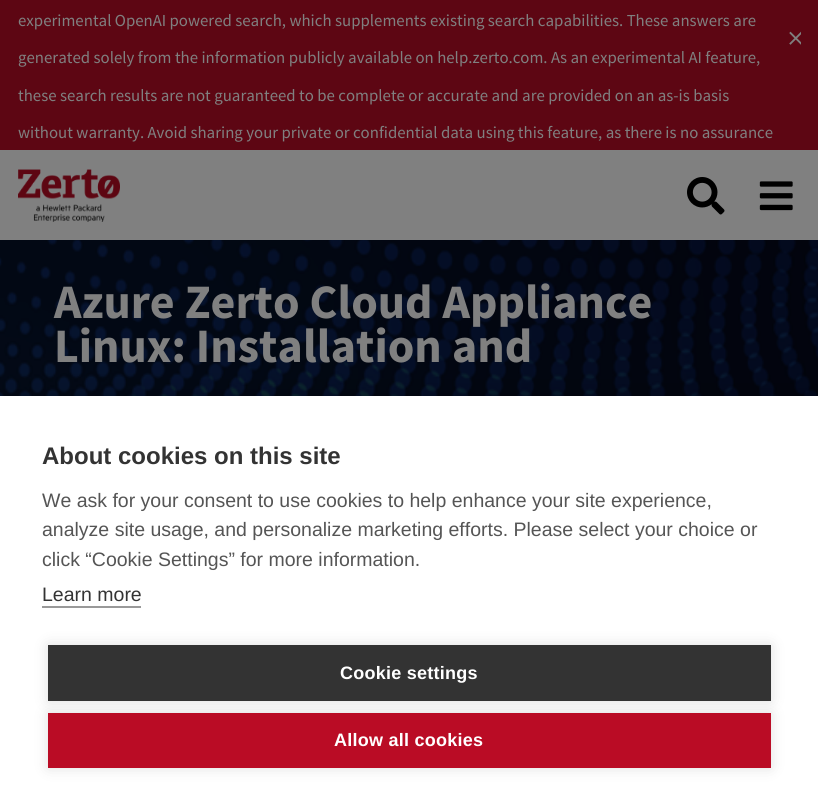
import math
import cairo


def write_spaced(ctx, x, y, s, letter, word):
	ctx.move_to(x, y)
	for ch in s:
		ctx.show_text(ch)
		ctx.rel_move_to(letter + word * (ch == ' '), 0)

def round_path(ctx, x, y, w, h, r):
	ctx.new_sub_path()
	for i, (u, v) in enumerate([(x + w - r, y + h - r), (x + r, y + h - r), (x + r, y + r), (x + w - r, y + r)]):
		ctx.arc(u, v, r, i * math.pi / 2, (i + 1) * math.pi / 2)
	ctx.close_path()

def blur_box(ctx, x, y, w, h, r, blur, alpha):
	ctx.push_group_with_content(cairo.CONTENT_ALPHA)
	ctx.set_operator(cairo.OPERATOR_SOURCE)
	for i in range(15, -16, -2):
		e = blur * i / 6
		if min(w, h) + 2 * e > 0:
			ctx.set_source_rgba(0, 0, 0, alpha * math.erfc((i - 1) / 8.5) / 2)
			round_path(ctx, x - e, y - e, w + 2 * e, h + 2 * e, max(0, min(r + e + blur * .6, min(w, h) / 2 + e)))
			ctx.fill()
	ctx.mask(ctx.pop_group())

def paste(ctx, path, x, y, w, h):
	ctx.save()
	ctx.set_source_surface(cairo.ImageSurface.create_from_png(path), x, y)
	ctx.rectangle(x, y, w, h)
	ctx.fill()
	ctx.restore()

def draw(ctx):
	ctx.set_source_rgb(0.502, 0.502, 0.502)
	ctx.paint()
	ctx.set_source_rgb(0.365, 0.024, 0.075)
	ctx.rectangle(0, 0, 818, 150)
	ctx.fill()
	ctx.select_font_face('Source Sans Pro')
	ctx.set_font_size(16.8)
	ctx.set_source_rgb(0.502, 0.502, 0.502)
	for x, y, s in [
		(18, 26, 'experimental OpenAI powered search, which supplements existing search capabilities. These answers are'),
		(18, 63, 'generated solely from the information publicly available on help.zerto.com. As an experimental AI feature,'),
		(18, 101, 'these search results are not guaranteed to be complete or accurate and are provided on an as-is basis'),
		(18, 138, 'without warranty. Avoid sharing your private or confidential data using this feature, as there is no assurance'),
	]:
		ctx.move_to(x, y)
		ctx.show_text(s)
	paste(ctx, 'media/1.png', 789, 31, 12, 14)
	paste(ctx, 'media/2.png', 18, 169, 102, 53)
	paste(ctx, 'media/3.png', 687, 177, 38, 38)
	paste(ctx, 'media/4.png', 759, 181, 34, 30)
	paste(ctx, 'media/5.png', 0, 240, 818, 156)
	ctx.select_font_face('Source Sans Pro', cairo.FONT_SLANT_NORMAL, cairo.FONT_WEIGHT_BOLD)
	ctx.set_font_size(48)
	ctx.move_to(54, 318)
	ctx.show_text('Azure Zerto Cloud Appliance')
	ctx.move_to(54, 362)
	ctx.show_text('Linux: Installation and')
	ctx.set_source_rgb(0, 0, 0)
	blur_box(ctx, 0, 396, 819, 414, 0, 15, 0.2)
	ctx.set_source_rgb(1, 1, 1)
	ctx.rectangle(0, 396, 818, 413)
	ctx.fill()
	ctx.select_font_face('Liberation Sans', cairo.FONT_SLANT_NORMAL, cairo.FONT_WEIGHT_BOLD)
	ctx.set_font_size(24)
	ctx.set_source_rgb(0.2, 0.2, 0.2)
	ctx.move_to(42, 464)
	ctx.show_text('About cookies on this site')
	ctx.select_font_face('Liberation Sans')
	ctx.set_font_size(19.5)
	ctx.set_source_rgb(0.333, 0.333, 0.333)
	for x, y, s in [
		(42, 507, 'We ask for your consent to use cookies to help enhance your site experience,'),
		(42, 536, 'analyze site usage, and personalize marketing efforts. Please select your choice or'),
		(42, 566, 'click “Cookie Settings” for more information.'),
	]:
		ctx.move_to(x, y)
		ctx.show_text(s)
	ctx.set_source_rgb(0.2, 0.2, 0.2)
	ctx.move_to(42, 601)
	ctx.show_text('Learn more')
	ctx.set_source_rgb(0.6, 0.6, 0.6)
	ctx.rectangle(42, 606, 99, 2)
	ctx.fill()
	ctx.set_source_rgb(0, 0, 0)
	blur_box(ctx, 48, 645, 723, 56, 0, 7.5, 0.12)
	ctx.set_source_rgb(0.2, 0.2, 0.2)
	ctx.rectangle(48, 645, 723, 56)
	ctx.fill()
	ctx.select_font_face('Liberation Sans', cairo.FONT_SLANT_NORMAL, cairo.FONT_WEIGHT_BOLD)
	ctx.set_font_size(18)
	ctx.set_source_rgb(1, 1, 1)
	write_spaced(ctx, 340, 679, 'Cookie settings', 0.25, 0)
	ctx.set_source_rgb(0, 0, 0)
	blur_box(ctx, 48, 713, 723, 55, 0, 7.5, 0.12)
	ctx.set_source_rgb(0.729, 0.047, 0.145)
	ctx.rectangle(48, 713, 723, 55)
	ctx.fill()
	ctx.set_source_rgb(1, 1, 1)
	write_spaced(ctx, 334, 746, 'Allow all cookies', 0.25, 0)


surface = cairo.ImageSurface(cairo.FORMAT_RGB24, 818, 809)
ctx = cairo.Context(surface)
options = cairo.FontOptions()
options.set_hint_metrics(cairo.HINT_METRICS_OFF)
options.set_hint_style(cairo.HINT_STYLE_NONE)
ctx.set_font_options(options)
ctx.set_miter_limit(4)
draw(ctx)
surface.write_to_png('image.png')
